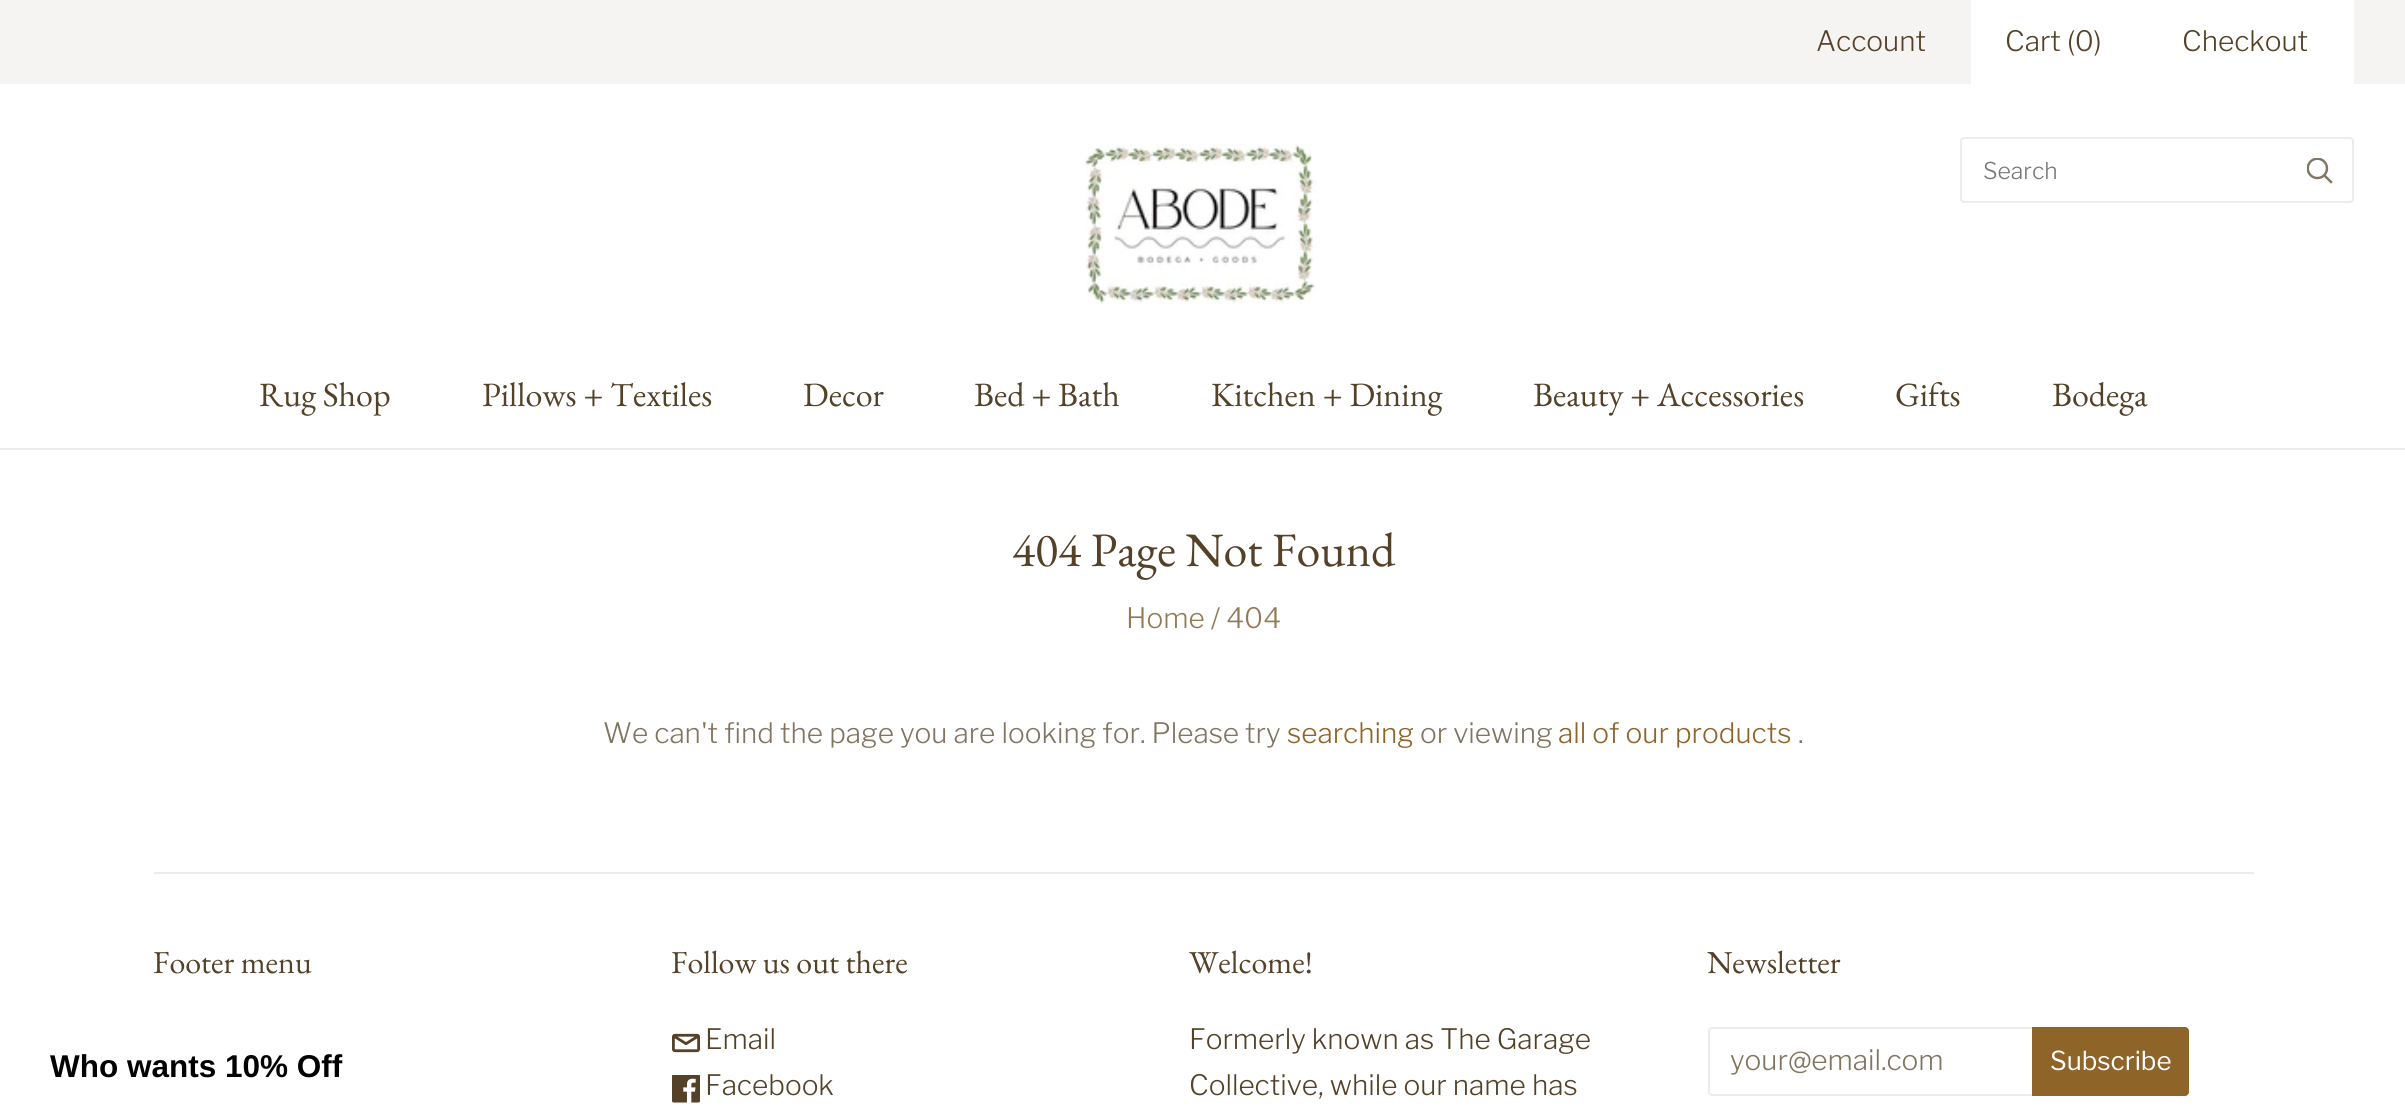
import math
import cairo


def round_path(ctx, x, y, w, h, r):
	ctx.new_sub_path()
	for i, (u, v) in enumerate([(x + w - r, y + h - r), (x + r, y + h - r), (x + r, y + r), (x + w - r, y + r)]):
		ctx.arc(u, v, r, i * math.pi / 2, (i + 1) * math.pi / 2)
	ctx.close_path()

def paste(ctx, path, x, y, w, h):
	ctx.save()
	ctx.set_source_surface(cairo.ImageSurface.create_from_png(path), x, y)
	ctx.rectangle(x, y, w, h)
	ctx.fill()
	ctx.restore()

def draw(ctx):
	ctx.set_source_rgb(1, 1, 1)
	ctx.paint()
	ctx.set_source_rgb(0.929, 0.925, 0.918)
	ctx.rectangle(0, 448, 2405, 2)
	ctx.fill()
	ctx.set_source_rgb(0.961, 0.957, 0.949)
	ctx.rectangle(0, 0, 2405, 84)
	ctx.fill()
	ctx.select_font_face('Libre Franklin Light')
	ctx.set_font_size(28)
	ctx.set_source_rgb(0.329, 0.255, 0.157)
	ctx.move_to(1816, 51)
	ctx.show_text('Account')
	ctx.set_source_rgb(1, 1, 1)
	ctx.rectangle(1971, 0, 383, 84)
	ctx.fill()
	ctx.set_source_rgb(0.329, 0.255, 0.157)
	ctx.move_to(2005, 51)
	ctx.show_text('Cart (0)')
	ctx.move_to(2182, 51)
	ctx.show_text('Checkout')
	paste(ctx, 'media/1.png', 1084, 143, 234, 161)
	round_path(ctx, 1961, 138, 392, 64, 3)
	ctx.set_source_rgb(0.929, 0.925, 0.918)
	ctx.stroke()
	ctx.set_font_size(23)
	ctx.set_source_rgb(0.459, 0.459, 0.459)
	ctx.move_to(1983, 179)
	ctx.show_text('Search')
	paste(ctx, 'media/2.png', 2307, 158, 26, 26)
	ctx.select_font_face('EB Garamond')
	ctx.set_font_size(34)
	ctx.set_source_rgb(0.329, 0.255, 0.157)
	for x, y, s in [
		(259, 406, 'Rug Shop'),
		(482, 406, 'Pillows + Textiles'),
		(803, 406, 'Decor'),
		(974, 406, 'Bed + Bath'),
		(1211, 406, 'Kitchen + Dining'),
		(1533, 406, 'Beauty + Accessories'),
		(1895, 406, 'Gifts'),
		(2052, 406, 'Bodega'),
	]:
		ctx.move_to(x, y)
		ctx.show_text(s)
	ctx.set_font_size(48)
	ctx.move_to(1012, 566)
	ctx.show_text('404 Page Not Found')
	ctx.select_font_face('Libre Franklin Light')
	ctx.set_font_size(28)
	ctx.set_source_rgb(0.576, 0.478, 0.329)
	ctx.move_to(1126, 628)
	ctx.show_text('Home / 404')
	ctx.set_source_rgb(0.506, 0.459, 0.384)
	ctx.move_to(603, 743)
	ctx.show_text('We can\'t find the page you are looking for. Please try')
	ctx.set_source_rgb(0.557, 0.392, 0.161)
	ctx.move_to(1287, 743)
	ctx.show_text('searching')
	ctx.set_source_rgb(0.506, 0.459, 0.384)
	ctx.move_to(1420, 743)
	ctx.show_text('or viewing')
	ctx.set_source_rgb(0.557, 0.392, 0.161)
	ctx.move_to(1558, 743)
	ctx.show_text('all of our products')
	ctx.set_source_rgb(0.506, 0.459, 0.384)
	ctx.move_to(1798, 743)
	ctx.show_text('.')
	ctx.set_source_rgb(0.929, 0.925, 0.918)
	ctx.rectangle(154, 872, 2100, 2)
	ctx.fill()
	ctx.select_font_face('EB Garamond')
	ctx.set_font_size(32)
	ctx.set_source_rgb(0.329, 0.255, 0.157)
	ctx.move_to(153, 973)
	ctx.show_text('Footer menu')
	ctx.move_to(671, 973)
	ctx.show_text('Follow us out there')
	paste(ctx, 'media/3.png', 672, 1033, 28, 20)
	ctx.select_font_face('Libre Franklin Light')
	ctx.set_font_size(28)
	ctx.move_to(705, 1049)
	ctx.show_text('Email')
	paste(ctx, 'media/4.png', 672, 1075, 28, 28)
	ctx.move_to(705, 1095)
	ctx.show_text('Facebook')
	ctx.select_font_face('EB Garamond')
	ctx.set_font_size(32)
	ctx.move_to(1189, 973)
	ctx.show_text('Welcome!')
	ctx.select_font_face('Libre Franklin Light')
	ctx.set_font_size(28)
	ctx.move_to(1189, 1049)
	ctx.show_text('Formerly known as The Garage')
	ctx.move_to(1189, 1095)
	ctx.show_text('Collective, while our name has')
	ctx.select_font_face('EB Garamond')
	ctx.set_font_size(32)
	ctx.move_to(1707, 973)
	ctx.show_text('Newsletter')
	round_path(ctx, 1709, 1028, 479, 67, 3)
	ctx.set_source_rgb(0.929, 0.925, 0.918)
	ctx.stroke()
	ctx.select_font_face('Libre Franklin Light')
	ctx.set_font_size(28)
	ctx.set_source_rgb(0.506, 0.459, 0.384)
	ctx.move_to(1730, 1070)
	ctx.show_text('your@email.com')
	ctx.set_source_rgb(0.557, 0.392, 0.161)
	ctx.new_path()
	ctx.move_to(2032, 1027)
	ctx.line_to(2185, 1027)
	ctx.curve_to(2187, 1027, 2189, 1029, 2189, 1031)
	ctx.line_to(2189, 1092)
	ctx.curve_to(2189, 1094, 2187, 1096, 2185, 1096)
	ctx.line_to(2032, 1096)
	ctx.close_path()
	ctx.fill()
	ctx.select_font_face('Libre Franklin')
	ctx.set_font_size(26)
	ctx.set_source_rgb(1, 1, 1)
	ctx.move_to(2050, 1070)
	ctx.show_text('Subscribe')
	ctx.select_font_face('Liberation Sans', cairo.FONT_SLANT_NORMAL, cairo.FONT_WEIGHT_BOLD)
	ctx.set_font_size(31.5)
	ctx.set_source_rgb(0, 0, 0)
	ctx.move_to(50, 1077)
	ctx.show_text('Who wants 10% Off')


surface = cairo.ImageSurface(cairo.FORMAT_RGB24, 2405, 1111)
ctx = cairo.Context(surface)
options = cairo.FontOptions()
options.set_hint_metrics(cairo.HINT_METRICS_OFF)
options.set_hint_style(cairo.HINT_STYLE_NONE)
ctx.set_font_options(options)
ctx.set_miter_limit(4)
draw(ctx)
surface.write_to_png('image.png')
